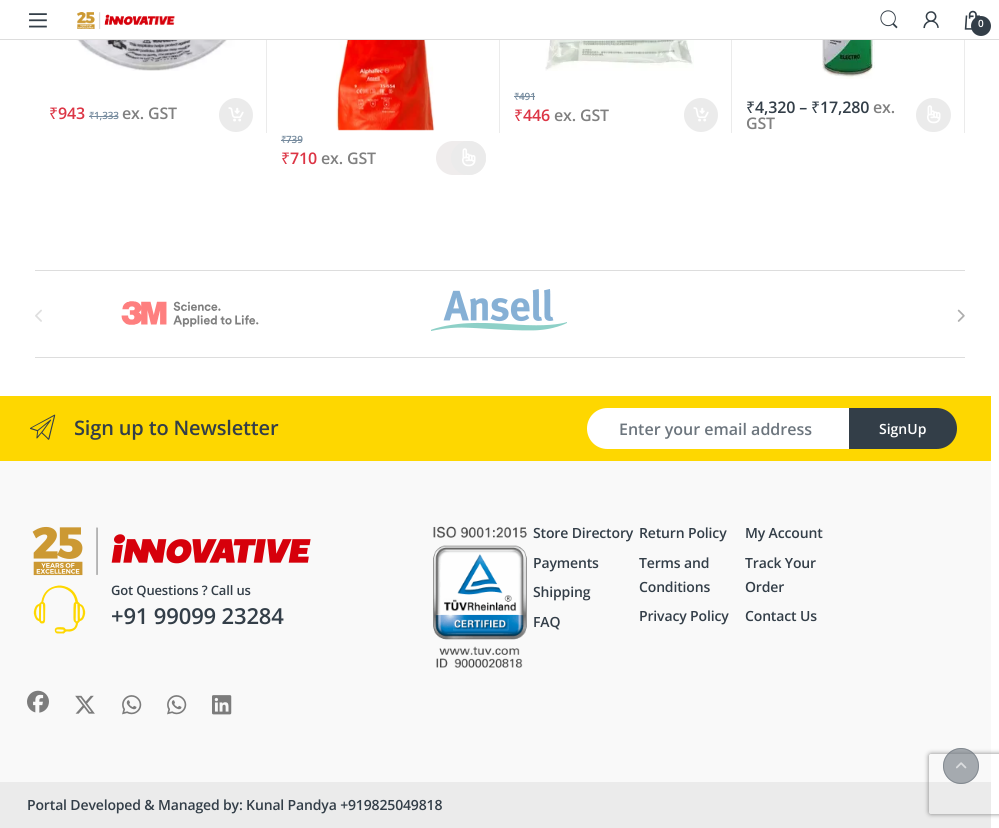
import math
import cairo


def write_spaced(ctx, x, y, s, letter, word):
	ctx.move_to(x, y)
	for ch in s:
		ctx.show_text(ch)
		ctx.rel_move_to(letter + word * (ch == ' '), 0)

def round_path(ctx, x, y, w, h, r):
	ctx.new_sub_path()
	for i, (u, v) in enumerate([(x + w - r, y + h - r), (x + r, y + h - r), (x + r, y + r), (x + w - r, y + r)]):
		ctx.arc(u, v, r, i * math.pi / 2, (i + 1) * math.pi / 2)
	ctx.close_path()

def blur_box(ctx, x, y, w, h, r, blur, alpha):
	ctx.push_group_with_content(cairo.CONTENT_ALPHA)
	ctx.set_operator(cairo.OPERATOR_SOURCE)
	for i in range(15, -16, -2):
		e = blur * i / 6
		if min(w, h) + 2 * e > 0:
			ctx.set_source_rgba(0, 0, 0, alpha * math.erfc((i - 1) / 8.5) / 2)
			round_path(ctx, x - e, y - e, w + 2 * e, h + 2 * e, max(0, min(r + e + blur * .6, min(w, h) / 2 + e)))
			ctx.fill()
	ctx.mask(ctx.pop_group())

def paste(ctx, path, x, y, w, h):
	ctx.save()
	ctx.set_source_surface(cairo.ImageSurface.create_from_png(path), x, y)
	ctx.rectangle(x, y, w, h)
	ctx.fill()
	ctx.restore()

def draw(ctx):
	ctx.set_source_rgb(1, 1, 1)
	ctx.paint()
	ctx.set_source_rgb(0.867, 0.867, 0.867)
	ctx.rectangle(0, 39, 999, 1)
	ctx.fill()
	paste(ctx, 'media/1.png', 29, 13, 18, 15)
	paste(ctx, 'media/2.png', 77, 12, 98, 17)
	paste(ctx, 'media/3.png', 880, 10, 18, 19)
	paste(ctx, 'media/4.png', 923, 11, 16, 18)
	paste(ctx, 'media/5.png', 964, 10, 16, 20)
	ctx.set_source_rgb(0.2, 0.243, 0.282)
	ctx.arc(981, 26, 10, 0, 2 * math.pi)
	ctx.fill()
	ctx.select_font_face('Open Sans SemiBold')
	ctx.set_font_size(10)
	ctx.set_source_rgb(1, 1, 1)
	write_spaced(ctx, 978, 27, '0', -0.15, 0)
	paste(ctx, 'media/6.png', 58, 40, 187, 31)
	ctx.select_font_face('Noto Sans')
	ctx.set_font_size(16)
	ctx.set_source_rgb(0.863, 0.208, 0.271)
	write_spaced(ctx, 49, 119, '₹', -0.15, 0)
	ctx.select_font_face('Open Sans SemiBold')
	write_spaced(ctx, 58, 119, '943', -0.15, 0)
	ctx.select_font_face('Noto Sans')
	ctx.set_font_size(10)
	ctx.set_source_rgb(0.463, 0.545, 0.62)
	write_spaced(ctx, 89, 119, '₹', -0.15, 0)
	ctx.select_font_face('Open Sans SemiBold')
	write_spaced(ctx, 94, 119, '1,333', -0.15, 0)
	ctx.rectangle(89, 116, 5, 1)
	ctx.fill()
	ctx.rectangle(94, 116, 24, 1)
	ctx.fill()
	ctx.set_font_size(16)
	ctx.set_source_rgb(0.502, 0.502, 0.502)
	write_spaced(ctx, 122, 119, 'ex. GST', -0.15, 0)
	ctx.set_source_rgb(0.918, 0.918, 0.918)
	ctx.new_path()
	ctx.arc(236, 115, 17, 0, 2 * math.pi)
	ctx.fill()
	paste(ctx, 'media/7.png', 228, 107, 16, 15)
	ctx.rectangle(266, 40, 1, 93)
	ctx.fill()
	paste(ctx, 'media/8.png', 545, 40, 149, 31)
	ctx.select_font_face('Noto Sans')
	ctx.set_font_size(10)
	ctx.set_source_rgb(0.463, 0.545, 0.62)
	write_spaced(ctx, 514, 100, '₹', -0.15, 0)
	ctx.rectangle(514, 96, 5, 1)
	ctx.fill()
	ctx.rectangle(519, 96, 16, 1)
	ctx.fill()
	ctx.select_font_face('Open Sans SemiBold')
	write_spaced(ctx, 519, 100, '491', -0.15, 0)
	ctx.select_font_face('Noto Sans')
	ctx.set_font_size(16)
	ctx.set_source_rgb(0.863, 0.208, 0.271)
	write_spaced(ctx, 514, 121, '₹', -0.15, 0)
	ctx.select_font_face('Open Sans SemiBold')
	write_spaced(ctx, 523, 121, '446', -0.15, 0)
	ctx.set_source_rgb(0.502, 0.502, 0.502)
	write_spaced(ctx, 554, 121, 'ex. GST', -0.15, 0)
	ctx.set_source_rgb(0.918, 0.918, 0.918)
	ctx.new_path()
	ctx.arc(701, 115, 17, 0, 2 * math.pi)
	ctx.fill()
	paste(ctx, 'media/7.png', 693, 107, 16, 15)
	ctx.rectangle(731, 40, 1, 93)
	ctx.fill()
	paste(ctx, 'media/9.png', 822, 40, 53, 39)
	ctx.select_font_face('Noto Sans')
	ctx.set_source_rgb(0.2, 0.243, 0.282)
	write_spaced(ctx, 746, 113, '₹', -0.15, 0)
	ctx.select_font_face('Open Sans SemiBold')
	write_spaced(ctx, 755, 113, '4,320 –', -0.15, 0)
	ctx.select_font_face('Noto Sans')
	write_spaced(ctx, 811, 113, '₹', -0.15, 0)
	ctx.select_font_face('Open Sans SemiBold')
	write_spaced(ctx, 820, 113, '17,280', -0.15, 0)
	ctx.set_source_rgb(0.502, 0.502, 0.502)
	write_spaced(ctx, 873, 113, 'ex.', -0.15, 0)
	write_spaced(ctx, 746, 129, 'GST', -0.15, 0)
	ctx.set_source_rgb(0.918, 0.918, 0.918)
	round_path(ctx, 916, 98, 35, 34, 17)
	ctx.fill()
	paste(ctx, 'media/10.png', 927, 105, 14, 19)
	ctx.rectangle(964, 40, 1, 93)
	ctx.fill()
	ctx.rectangle(499, 40, 1, 93)
	ctx.fill()
	paste(ctx, 'media/11.png', 336, 40, 99, 91)
	ctx.select_font_face('Noto Sans')
	ctx.set_font_size(10)
	ctx.set_source_rgb(0.463, 0.545, 0.62)
	write_spaced(ctx, 281, 143, '₹', -0.15, 0)
	ctx.select_font_face('Open Sans SemiBold')
	write_spaced(ctx, 286, 143, '739', -0.15, 0)
	ctx.rectangle(281, 140, 5, 1)
	ctx.fill()
	ctx.rectangle(286, 140, 16, 1)
	ctx.fill()
	ctx.select_font_face('Noto Sans')
	ctx.set_font_size(16)
	ctx.set_source_rgb(0.863, 0.208, 0.271)
	write_spaced(ctx, 281, 164, '₹', -0.15, 0)
	ctx.select_font_face('Open Sans SemiBold')
	write_spaced(ctx, 290, 164, '710', -0.15, 0)
	ctx.set_source_rgb(0.502, 0.502, 0.502)
	write_spaced(ctx, 321, 164, 'ex. GST', -0.15, 0)
	ctx.set_source_rgb(0.937, 0.925, 0.925)
	round_path(ctx, 436, 141, 50, 34, 17)
	ctx.fill()
	ctx.set_source_rgb(0.918, 0.918, 0.918)
	round_path(ctx, 451, 141, 35, 34, 17)
	ctx.fill()
	paste(ctx, 'media/10.png', 462, 148, 14, 19)
	ctx.set_source_rgb(0.867, 0.867, 0.867)
	ctx.rectangle(35, 270, 930, 1)
	ctx.fill()
	ctx.rectangle(35, 357, 930, 1)
	ctx.fill()
	paste(ctx, 'media/12.png', 121, 301, 138, 26)
	paste(ctx, 'media/13.png', 431, 289, 136, 42)
	paste(ctx, 'media/14.png', 35, 309, 7, 13)
	paste(ctx, 'media/15.png', 957, 309, 8, 13)
	ctx.set_source_rgb(0.996, 0.843, 0)
	ctx.rectangle(0, 396, 991, 65)
	ctx.fill()
	paste(ctx, 'media/16.png', 30, 414, 26, 26)
	ctx.set_font_size(20)
	ctx.set_source_rgb(0.2, 0.243, 0.282)
	write_spaced(ctx, 74, 435, 'Sign up to Newsletter', -0.15, 0)
	ctx.set_source_rgb(1, 1, 1)
	ctx.new_path()
	ctx.move_to(607.5, 408)
	ctx.line_to(849, 408)
	ctx.line_to(849, 449)
	ctx.line_to(607.5, 449)
	ctx.curve_to(596, 449, 587, 440, 587, 428.5)
	ctx.curve_to(587, 417, 596, 408, 607.5, 408)
	ctx.close_path()
	ctx.fill()
	ctx.set_font_size(16)
	ctx.set_source_rgb(0.424, 0.459, 0.49)
	ctx.move_to(619, 435)
	ctx.show_text('Enter your email address')
	ctx.set_source_rgb(0.2, 0.243, 0.282)
	ctx.new_path()
	ctx.move_to(849, 408)
	ctx.line_to(936.5, 408)
	ctx.curve_to(948, 408, 957, 417, 957, 428.5)
	ctx.curve_to(957, 440, 948, 449, 936.5, 449)
	ctx.line_to(849, 449)
	ctx.close_path()
	ctx.fill()
	ctx.set_font_size(14)
	ctx.set_source_rgb(1, 1, 1)
	ctx.move_to(879, 434)
	ctx.show_text('SignUp')
	ctx.set_source_rgb(0.973, 0.973, 0.973)
	ctx.rectangle(0, 461, 991, 321)
	ctx.fill()
	paste(ctx, 'media/17.png', 32, 526, 279, 50)
	paste(ctx, 'media/18.png', 33, 585, 53, 49)
	ctx.set_font_size(13)
	ctx.set_source_rgb(0.2, 0.243, 0.282)
	write_spaced(ctx, 111, 595, 'Got Questions ? Call us', -0.15, 0)
	ctx.set_font_size(22)
	write_spaced(ctx, 111, 624, '+91 99099 23284', -0.15, 0)
	paste(ctx, 'media/19.png', 27, 690, 22, 23)
	paste(ctx, 'media/20.png', 75, 695, 20, 19)
	paste(ctx, 'media/21.png', 122, 695, 20, 20)
	paste(ctx, 'media/21.png', 167, 695, 20, 20)
	paste(ctx, 'media/22.png', 212, 695, 20, 20)
	paste(ctx, 'media/23.png', 433, 526, 94, 142)
	ctx.set_font_size(14)
	for x, y, s in [
		(533, 538, 'Store Directory'),
		(533, 568, 'Payments'),
		(533, 597, 'Shipping'),
		(533, 627, 'FAQ'),
		(639, 538, 'Return Policy'),
		(639, 568, 'Terms and'),
		(639, 592, 'Conditions'),
		(639, 621, 'Privacy Policy'),
		(745, 538, 'My Account'),
		(745, 568, 'Track Your'),
		(745, 592, 'Order'),
		(745, 621, 'Contact Us'),
	]:
		write_spaced(ctx, x, y, s, -0.15, 0)
	ctx.set_source_rgb(0.918, 0.918, 0.918)
	ctx.rectangle(0, 782, 991, 46)
	ctx.fill()
	ctx.set_source_rgb(0.2, 0.243, 0.282)
	write_spaced(ctx, 27, 810, 'Portal Developed & Managed by: Kunal Pandya +919825049818', -0.15, 0)
	ctx.save()
	ctx.set_fill_rule(cairo.FILL_RULE_EVEN_ODD)
	ctx.new_path()
	ctx.move_to(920, 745)
	ctx.line_to(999, 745)
	ctx.line_to(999, 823)
	ctx.line_to(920, 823)
	ctx.close_path()
	ctx.move_to(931, 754)
	ctx.line_to(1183, 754)
	ctx.curve_to(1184, 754, 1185, 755, 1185, 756)
	ctx.line_to(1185, 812)
	ctx.curve_to(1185, 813, 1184, 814, 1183, 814)
	ctx.line_to(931, 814)
	ctx.curve_to(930, 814, 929, 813, 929, 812)
	ctx.line_to(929, 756)
	ctx.curve_to(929, 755, 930, 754, 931, 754)
	ctx.close_path()
	ctx.clip()
	ctx.set_source_rgb(0.502, 0.502, 0.502)
	blur_box(ctx, 929, 754, 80, 60, 2, 2.5, 1)
	ctx.restore()
	ctx.set_source_rgba(0.424, 0.459, 0.49, 0.6)
	ctx.arc(961, 766, 18, 0, 2 * math.pi)
	ctx.fill()
	ctx.arc(961, 766, 17.5, 0, 2 * math.pi)
	ctx.set_line_width(1)
	ctx.stroke()
	paste(ctx, 'media/24.png', 956, 762, 11, 7)


surface = cairo.ImageSurface(cairo.FORMAT_RGB24, 999, 828)
ctx = cairo.Context(surface)
options = cairo.FontOptions()
options.set_hint_metrics(cairo.HINT_METRICS_OFF)
options.set_hint_style(cairo.HINT_STYLE_NONE)
ctx.set_font_options(options)
ctx.set_miter_limit(4)
draw(ctx)
surface.write_to_png('image.png')
